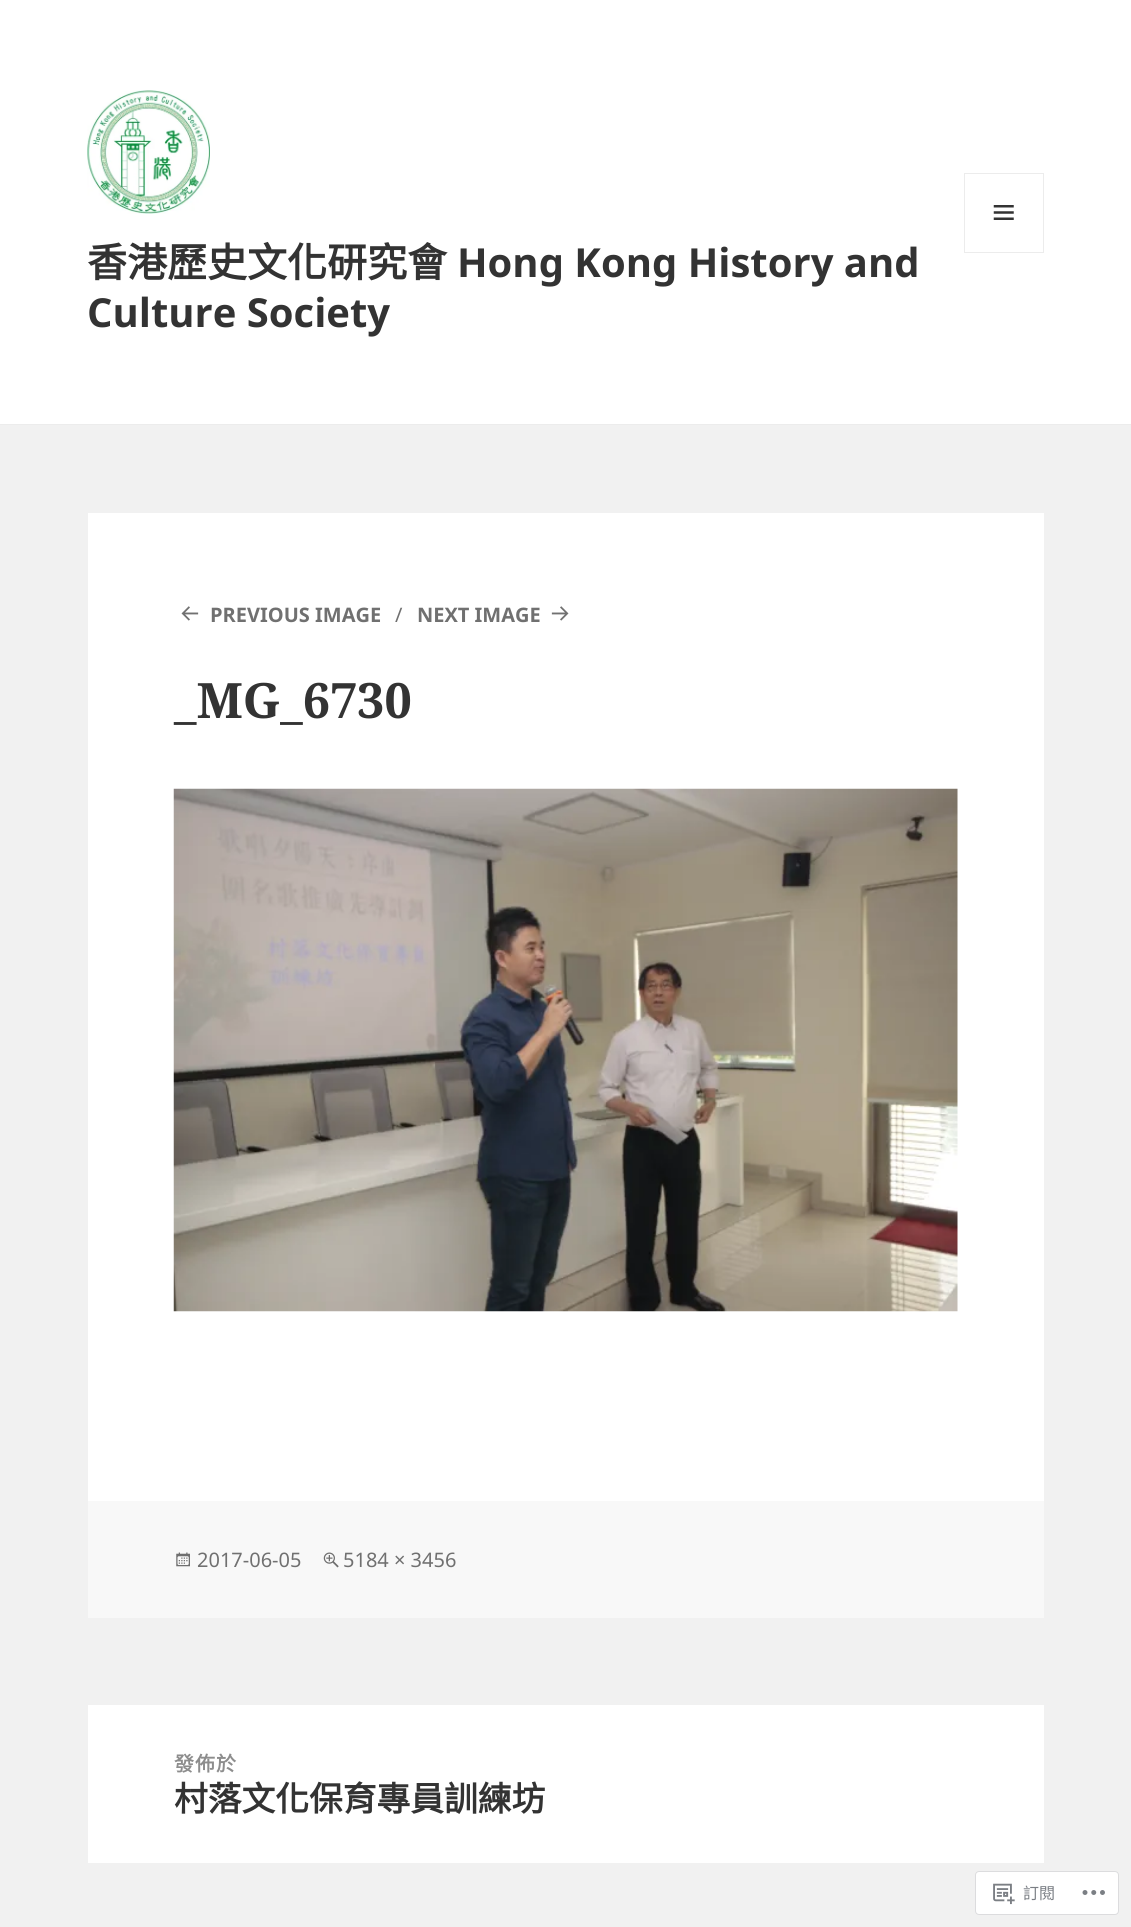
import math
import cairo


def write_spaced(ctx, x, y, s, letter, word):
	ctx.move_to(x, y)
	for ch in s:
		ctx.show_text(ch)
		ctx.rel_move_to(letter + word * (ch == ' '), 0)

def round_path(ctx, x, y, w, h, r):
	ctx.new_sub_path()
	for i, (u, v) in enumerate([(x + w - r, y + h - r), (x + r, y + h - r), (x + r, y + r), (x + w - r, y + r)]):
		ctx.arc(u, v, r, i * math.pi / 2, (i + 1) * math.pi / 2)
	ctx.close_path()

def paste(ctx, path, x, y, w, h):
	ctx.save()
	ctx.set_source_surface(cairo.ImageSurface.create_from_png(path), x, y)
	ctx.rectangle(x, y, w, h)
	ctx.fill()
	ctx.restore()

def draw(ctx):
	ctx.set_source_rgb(0.945, 0.945, 0.945)
	ctx.paint()
	ctx.set_source_rgb(1, 1, 1)
	ctx.rectangle(0, 0, 1131, 424)
	ctx.fill()
	ctx.set_source_rgb(0.922, 0.922, 0.922)
	ctx.rectangle(0, 424, 1131, 1)
	ctx.fill()
	paste(ctx, 'media/1.png', 87, 90, 123, 124)
	ctx.rectangle(964.5, 173.5, 79, 79)
	ctx.set_line_width(1)
	ctx.stroke()
	paste(ctx, 'media/2.png', 993, 205, 21, 15)
	ctx.select_font_face('Noto Sans CJK TC', cairo.FONT_SLANT_NORMAL, cairo.FONT_WEIGHT_BOLD)
	ctx.set_font_size(40)
	ctx.set_source_rgb(0.2, 0.2, 0.2)
	ctx.move_to(87, 277)
	ctx.show_text('香港歷史文化研究會')
	ctx.select_font_face('Noto Sans', cairo.FONT_SLANT_NORMAL, cairo.FONT_WEIGHT_BOLD)
	ctx.move_to(457, 277)
	ctx.show_text('Hong Kong History and')
	ctx.move_to(87, 327)
	ctx.show_text('Culture Society')
	ctx.set_source_rgb(1, 1, 1)
	ctx.rectangle(88, 513, 956, 988)
	ctx.fill()
	paste(ctx, 'media/3.png', 181, 606, 18, 15)
	ctx.set_font_size(20)
	ctx.set_source_rgb(0.439, 0.439, 0.439)
	ctx.move_to(210, 622)
	ctx.show_text('PREVIOUS IMAGE')
	ctx.select_font_face('Noto Sans')
	ctx.move_to(395, 622)
	ctx.show_text('∕')
	ctx.select_font_face('Noto Sans', cairo.FONT_SLANT_NORMAL, cairo.FONT_WEIGHT_BOLD)
	ctx.move_to(417, 622)
	ctx.show_text('NEXT IMAGE')
	paste(ctx, 'media/4.png', 551, 606, 18, 15)
	ctx.select_font_face('Noto Serif', cairo.FONT_SLANT_NORMAL, cairo.FONT_WEIGHT_BOLD)
	ctx.set_font_size(48.75)
	ctx.set_source_rgb(0.2, 0.2, 0.2)
	ctx.move_to(174, 718)
	ctx.show_text('_MG_6730')
	paste(ctx, 'media/5.png', 173, 788, 785, 524)
	ctx.set_source_rgb(0.969, 0.969, 0.969)
	ctx.rectangle(88, 1501, 956, 117)
	ctx.fill()
	paste(ctx, 'media/6.png', 176, 1552, 14, 15)
	ctx.select_font_face('Noto Sans')
	ctx.set_font_size(20)
	ctx.set_source_rgb(0.439, 0.439, 0.439)
	ctx.move_to(197, 1567)
	ctx.show_text('2017-06-05')
	paste(ctx, 'media/7.png', 323, 1552, 16, 16)
	ctx.move_to(343, 1567)
	ctx.show_text('5184 × 3456')
	ctx.set_source_rgb(1, 1, 1)
	ctx.rectangle(88, 1705, 956, 158)
	ctx.fill()
	ctx.select_font_face('Noto Sans CJK TC', cairo.FONT_SLANT_NORMAL, cairo.FONT_WEIGHT_BOLD)
	ctx.set_source_rgb(0.553, 0.553, 0.553)
	write_spaced(ctx, 174, 1771, '發佈於', 1, 0)
	ctx.set_font_size(33.75)
	ctx.set_source_rgb(0.2, 0.2, 0.2)
	ctx.move_to(174, 1811)
	ctx.show_text('村落文化保育專員訓練坊')
	ctx.set_source_rgb(1, 1, 1)
	round_path(ctx, 975.5, 1871.5, 143, 43, 3.5)
	ctx.fill_preserve()
	ctx.set_source_rgb(0.863, 0.863, 0.871)
	ctx.stroke()
	paste(ctx, 'media/8.png', 993, 1883, 22, 22)
	ctx.select_font_face('Noto Sans CJK TC')
	ctx.set_font_size(16)
	ctx.set_source_rgb(0.478, 0.494, 0.518)
	ctx.move_to(1023, 1899)
	ctx.show_text('訂閱')
	paste(ctx, 'media/9.png', 1082, 1890, 23, 5)


surface = cairo.ImageSurface(cairo.FORMAT_RGB24, 1131, 1927)
ctx = cairo.Context(surface)
options = cairo.FontOptions()
options.set_hint_metrics(cairo.HINT_METRICS_OFF)
options.set_hint_style(cairo.HINT_STYLE_NONE)
ctx.set_font_options(options)
ctx.set_miter_limit(4)
draw(ctx)
surface.write_to_png('image.png')
